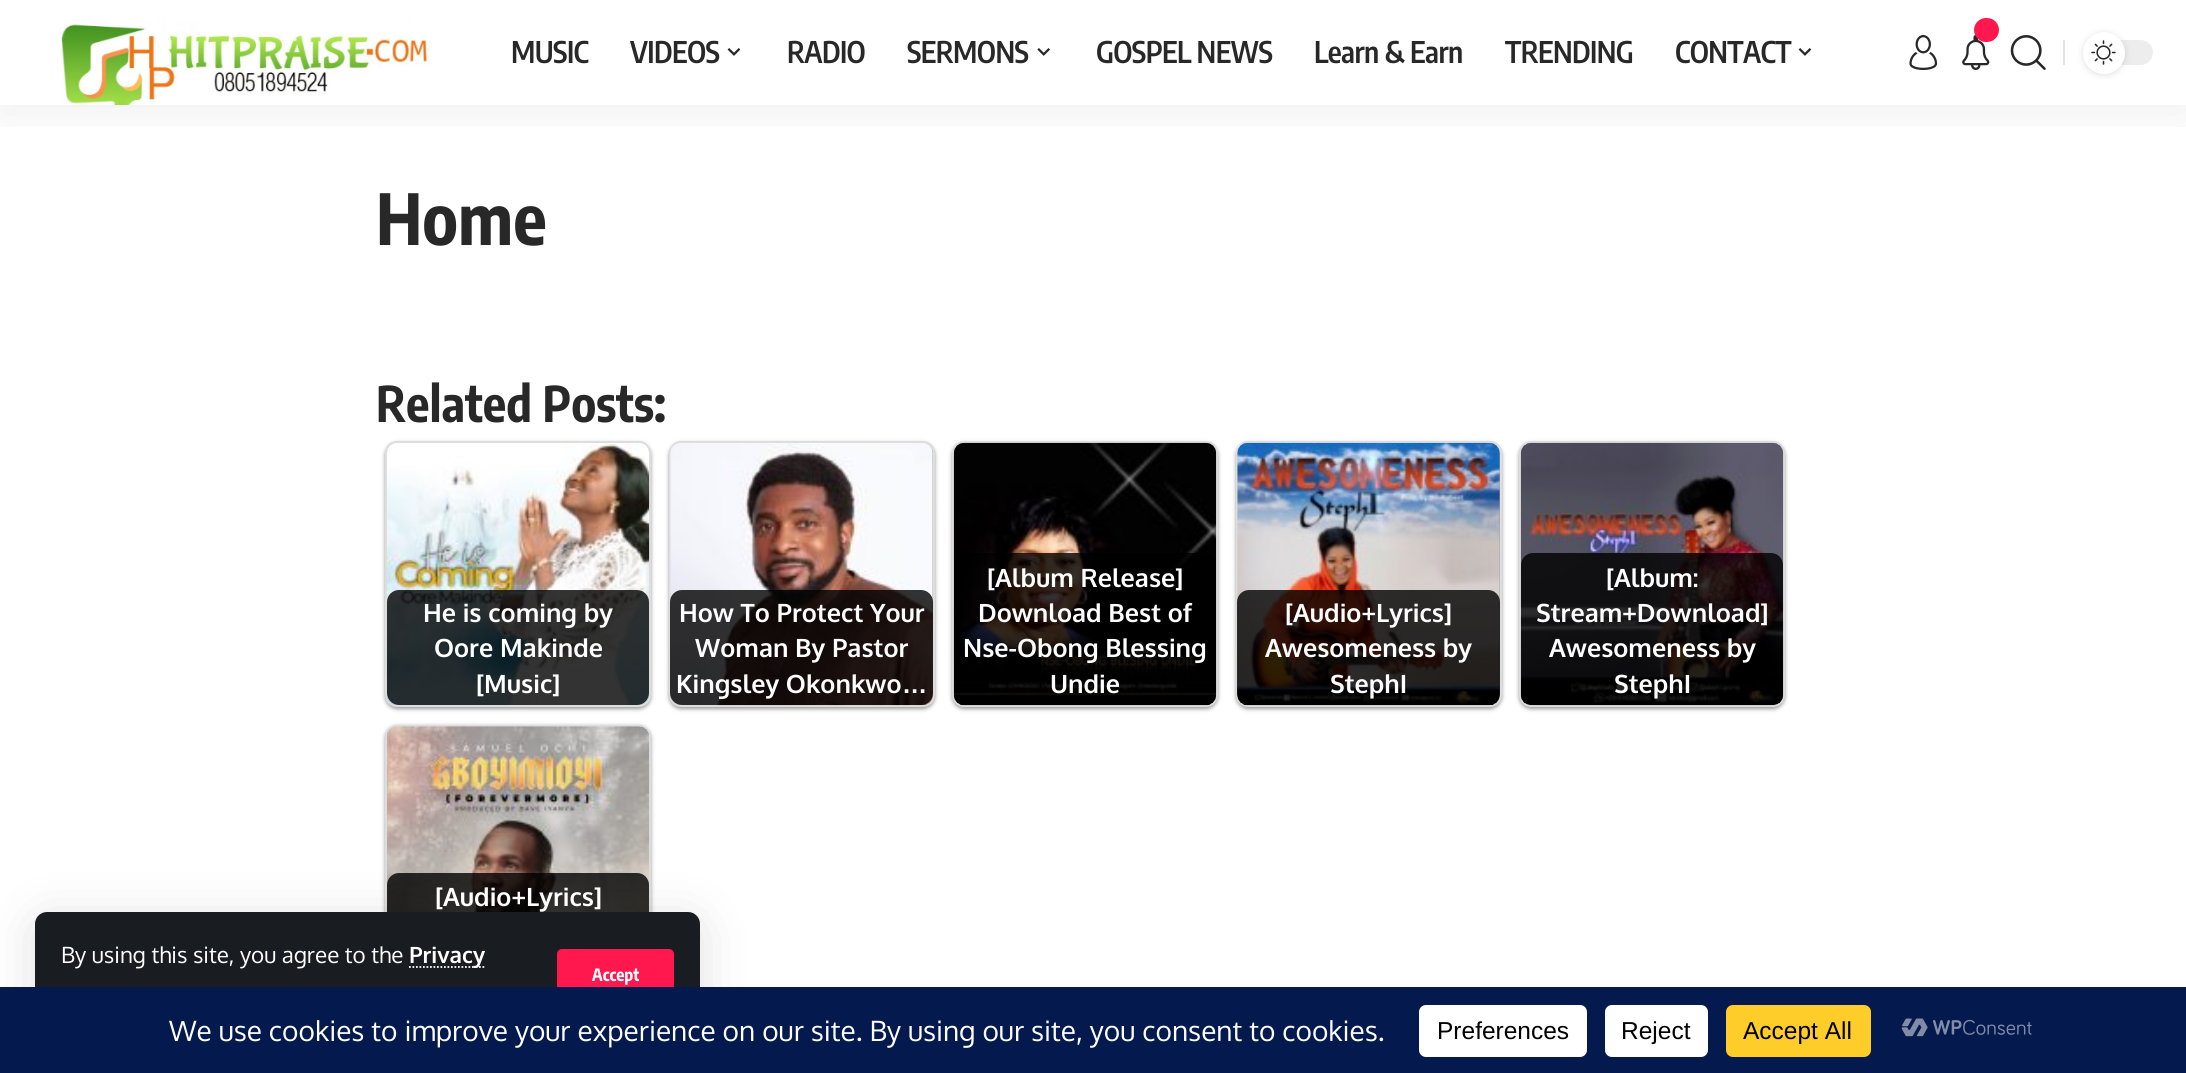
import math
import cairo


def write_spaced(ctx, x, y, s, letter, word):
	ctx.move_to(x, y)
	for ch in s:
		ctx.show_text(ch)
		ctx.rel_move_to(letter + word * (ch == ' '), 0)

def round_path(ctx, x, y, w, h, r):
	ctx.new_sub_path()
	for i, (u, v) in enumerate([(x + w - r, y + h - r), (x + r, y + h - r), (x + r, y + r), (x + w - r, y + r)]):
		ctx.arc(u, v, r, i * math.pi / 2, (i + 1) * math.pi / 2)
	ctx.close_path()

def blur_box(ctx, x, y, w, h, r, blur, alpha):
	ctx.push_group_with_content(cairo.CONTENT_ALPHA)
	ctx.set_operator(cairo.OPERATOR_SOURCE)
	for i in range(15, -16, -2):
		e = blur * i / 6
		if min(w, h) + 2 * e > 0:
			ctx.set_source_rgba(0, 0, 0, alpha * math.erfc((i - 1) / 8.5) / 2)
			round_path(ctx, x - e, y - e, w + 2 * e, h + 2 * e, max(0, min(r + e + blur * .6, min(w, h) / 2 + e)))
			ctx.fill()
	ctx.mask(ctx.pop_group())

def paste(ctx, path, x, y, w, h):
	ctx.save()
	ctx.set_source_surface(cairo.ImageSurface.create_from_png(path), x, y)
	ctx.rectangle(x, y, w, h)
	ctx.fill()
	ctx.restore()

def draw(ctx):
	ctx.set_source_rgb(1, 1, 1)
	ctx.paint()
	ctx.save()
	ctx.rectangle(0, 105, 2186, 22)
	ctx.clip()
	ctx.set_source_rgb(0, 0, 0)
	blur_box(ctx, 0, 7, 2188, 105, 0, 26, 0.07)
	ctx.restore()
	paste(ctx, 'media/1.png', 60, 20, 372, 85)
	ctx.select_font_face('Encode Sans Condensed SemiBold')
	ctx.set_font_size(29.75)
	ctx.set_source_rgb(0.157, 0.157, 0.157)
	write_spaced(ctx, 511, 63, 'MUSIC', -0.6, 0)
	write_spaced(ctx, 630, 63, 'VIDEOS', -0.6, 0)
	paste(ctx, 'media/2.png', 727, 48, 14, 8)
	write_spaced(ctx, 787, 63, 'RADIO', -0.6, 0)
	write_spaced(ctx, 907, 63, 'SERMONS', -0.6, 0)
	paste(ctx, 'media/3.png', 1037, 48, 13, 8)
	for x, y, s in [
		(1096, 63, 'GOSPEL NEWS'),
		(1314, 63, 'Learn & Earn'),
		(1505, 63, 'TRENDING'),
		(1675, 63, 'CONTACT'),
	]:
		write_spaced(ctx, x, y, s, -0.6, 0)
	paste(ctx, 'media/2.png', 1798, 48, 14, 8)
	paste(ctx, 'media/4.png', 1909, 35, 29, 35)
	paste(ctx, 'media/5.png', 1962, 35, 28, 35)
	ctx.set_source_rgb(1, 0.094, 0.306)
	round_path(ctx, 1974, 18, 25, 24, 12)
	ctx.fill()
	paste(ctx, 'media/6.png', 2010, 35, 36, 35)
	ctx.set_source_rgb(0.894, 0.894, 0.894)
	ctx.rectangle(2063, 40, 2, 25)
	ctx.fill()
	ctx.set_source_rgb(0.929, 0.929, 0.929)
	round_path(ctx, 2083, 40, 70, 25, 12.5)
	ctx.fill()
	ctx.set_source_rgb(0, 0, 0)
	blur_box(ctx, 2083, 33, 42, 42, 21, 3.5, 0.12)
	ctx.set_source_rgb(1, 1, 1)
	ctx.arc(2104, 53, 21, 0, 2 * math.pi)
	ctx.fill()
	paste(ctx, 'media/7.png', 2091, 40, 25, 25)
	ctx.set_source_rgb(0, 0, 0)
	blur_box(ctx, 385, 726, 266, 266, 12, 2, 0.4)
	round_path(ctx, 386, 726, 264, 264, 11)
	ctx.set_source_rgb(0.867, 0.867, 0.867)
	ctx.stroke()
	paste(ctx, 'media/13.png', 387, 726, 263, 186)
	ctx.set_source_rgba(0, 0, 0, 0.8)
	round_path(ctx, 387, 873, 262, 116, 12)
	ctx.fill()
	ctx.set_source_rgb(0, 0, 0)
	blur_box(ctx, 35, 919, 665, 128, 12, 26, 0.12)
	ctx.set_source_rgb(0.098, 0.11, 0.125)
	round_path(ctx, 35, 912, 665, 128, 12)
	ctx.fill()
	ctx.select_font_face('Oxygen')
	ctx.set_font_size(22.4)
	ctx.set_source_rgb(1, 1, 1)
	ctx.move_to(61, 963)
	ctx.show_text('By using this site, you agree to the')
	ctx.new_path()
	ctx.move_to(409, 967)
	ctx.line_to(485.5, 967)
	ctx.set_line_width(1.8)
	ctx.set_dash([1.75, 1.75])
	ctx.stroke()
	ctx.select_font_face('Oxygen', cairo.FONT_SLANT_NORMAL, cairo.FONT_WEIGHT_BOLD)
	ctx.move_to(409, 963)
	ctx.show_text('Privacy')
	ctx.set_source_rgb(1, 0.094, 0.306)
	round_path(ctx, 557, 949, 117, 52, 5)
	ctx.fill()
	ctx.select_font_face('Encode Sans Condensed', cairo.FONT_SLANT_NORMAL, cairo.FONT_WEIGHT_BOLD)
	ctx.set_font_size(17)
	ctx.set_source_rgb(1, 1, 1)
	ctx.move_to(592, 981)
	ctx.show_text('Accept')
	ctx.set_font_size(70)
	ctx.set_source_rgb(0.157, 0.157, 0.157)
	ctx.move_to(376, 245)
	ctx.show_text('Home')
	ctx.set_font_size(49)
	ctx.move_to(376, 422)
	ctx.show_text('Related Posts:')
	ctx.set_source_rgb(0, 0, 0)
	blur_box(ctx, 385, 443, 266, 266, 12, 2, 0.4)
	round_path(ctx, 386, 442, 264, 264, 11)
	ctx.set_source_rgb(0.867, 0.867, 0.867)
	ctx.set_line_width(2)
	ctx.set_dash([])
	ctx.stroke()
	paste(ctx, 'media/8.png', 386, 443, 264, 262)
	ctx.save()
	round_path(ctx, 387, 443, 262, 262, 11)
	ctx.clip()
	ctx.set_source_rgba(0, 0, 0, 0.8)
	round_path(ctx, 387, 590, 262, 115, 12)
	ctx.fill()
	ctx.restore()
	ctx.select_font_face('Oxygen', cairo.FONT_SLANT_NORMAL, cairo.FONT_WEIGHT_BOLD)
	ctx.set_font_size(25.25)
	ctx.set_source_rgb(1, 1, 1)
	for x, y, s in [
		(423, 622, 'He is coming by'),
		(434, 657, 'Oore Makinde'),
		(476, 693, '[Music]'),
	]:
		ctx.move_to(x, y)
		ctx.show_text(s)
	ctx.set_source_rgb(0, 0, 0)
	blur_box(ctx, 669, 443, 266, 266, 12, 2, 0.4)
	round_path(ctx, 670, 442, 264, 264, 11)
	ctx.set_source_rgb(0.867, 0.867, 0.867)
	ctx.stroke()
	paste(ctx, 'media/9.png', 670, 443, 263, 263)
	ctx.save()
	round_path(ctx, 670, 443, 263, 262, 11)
	ctx.clip()
	ctx.set_source_rgba(0, 0, 0, 0.8)
	round_path(ctx, 670, 590, 263, 115, 12)
	ctx.fill()
	ctx.restore()
	ctx.set_source_rgb(1, 1, 1)
	for x, y, s in [
		(679, 622, 'How To Protect Your'),
		(695, 657, 'Woman By Pastor'),
		(676, 693, 'Kingsley Okonkwo'),
	]:
		ctx.move_to(x, y)
		ctx.show_text(s)
	ctx.select_font_face('Liberation Sans', cairo.FONT_SLANT_NORMAL, cairo.FONT_WEIGHT_BOLD)
	ctx.move_to(902, 693)
	ctx.show_text('…')
	ctx.set_source_rgb(0, 0, 0)
	blur_box(ctx, 952, 443, 266, 266, 12, 2, 0.4)
	round_path(ctx, 953, 442, 264, 264, 11)
	ctx.set_source_rgb(0.867, 0.867, 0.867)
	ctx.stroke()
	paste(ctx, 'media/10.png', 953, 442, 264, 264)
	ctx.save()
	round_path(ctx, 954, 443, 262, 262, 11)
	ctx.clip()
	ctx.set_source_rgba(0, 0, 0, 0.8)
	round_path(ctx, 954, 553, 262, 152, 12)
	ctx.fill()
	ctx.restore()
	ctx.select_font_face('Oxygen', cairo.FONT_SLANT_NORMAL, cairo.FONT_WEIGHT_BOLD)
	ctx.set_source_rgb(1, 1, 1)
	for x, y, s in [
		(987, 587, '[Album Release]'),
		(978, 622, 'Download Best of'),
		(963, 657, 'Nse-Obong Blessing'),
		(1050, 693, 'Undie'),
	]:
		ctx.move_to(x, y)
		ctx.show_text(s)
	ctx.set_source_rgb(0, 0, 0)
	blur_box(ctx, 1236, 443, 266, 266, 12, 2, 0.4)
	round_path(ctx, 1237, 442, 264, 264, 11)
	ctx.set_source_rgb(0.867, 0.867, 0.867)
	ctx.stroke()
	paste(ctx, 'media/11.png', 1237, 442, 263, 264)
	ctx.save()
	round_path(ctx, 1237, 443, 263, 262, 11)
	ctx.clip()
	ctx.set_source_rgba(0, 0, 0, 0.8)
	round_path(ctx, 1237, 590, 263, 115, 12)
	ctx.fill()
	ctx.restore()
	ctx.set_source_rgb(1, 1, 1)
	for x, y, s in [
		(1285, 622, '[Audio+Lyrics]'),
		(1265, 657, 'Awesomeness by'),
		(1330, 693, 'StephI'),
	]:
		ctx.move_to(x, y)
		ctx.show_text(s)
	ctx.set_source_rgb(0, 0, 0)
	blur_box(ctx, 1519, 443, 266, 266, 12, 2, 0.4)
	round_path(ctx, 1520, 442, 264, 264, 11)
	ctx.set_source_rgb(0.867, 0.867, 0.867)
	ctx.stroke()
	paste(ctx, 'media/12.png', 1520, 442, 264, 264)
	ctx.save()
	round_path(ctx, 1521, 443, 262, 262, 11)
	ctx.clip()
	ctx.set_source_rgba(0, 0, 0, 0.8)
	round_path(ctx, 1521, 553, 262, 152, 12)
	ctx.fill()
	ctx.restore()
	ctx.set_source_rgb(1, 1, 1)
	for x, y, s in [
		(1606, 587, '[Album:'),
		(1536, 622, 'Stream+Download]'),
		(1549, 657, 'Awesomeness by'),
		(1614, 693, 'StephI'),
		(435, 906, '[Audio+Lyrics]'),
	]:
		ctx.move_to(x, y)
		ctx.show_text(s)
	ctx.set_source_rgb(0.016, 0.098, 0.306)
	ctx.rectangle(0, 987, 2186, 86)
	ctx.fill()
	ctx.select_font_face('Oxygen')
	ctx.set_font_size(28)
	ctx.set_source_rgb(1, 1, 1)
	ctx.move_to(169, 1041)
	ctx.show_text('We use cookies to improve your experience on our site. By using our site, you consent to cookies.')
	round_path(ctx, 1419, 1005, 168, 52, 7)
	ctx.fill()
	ctx.select_font_face('Liberation Sans')
	ctx.set_font_size(24.5)
	ctx.set_source_rgb(0, 0, 0)
	ctx.move_to(1437, 1039)
	ctx.show_text('Preferences')
	ctx.set_source_rgb(1, 1, 1)
	round_path(ctx, 1605, 1005, 103, 52, 7)
	ctx.fill()
	ctx.set_source_rgb(0, 0, 0)
	ctx.move_to(1621, 1039)
	ctx.show_text('Reject')
	ctx.set_source_rgb(1, 0.804, 0.165)
	round_path(ctx, 1726, 1005, 145, 52, 7)
	ctx.fill()
	ctx.set_source_rgb(0, 0, 0)
	ctx.move_to(1743, 1039)
	ctx.show_text('Accept All')
	paste(ctx, 'media/14.png', 1901, 1018, 131, 19)


surface = cairo.ImageSurface(cairo.FORMAT_RGB24, 2186, 1073)
ctx = cairo.Context(surface)
options = cairo.FontOptions()
options.set_hint_metrics(cairo.HINT_METRICS_OFF)
options.set_hint_style(cairo.HINT_STYLE_NONE)
ctx.set_font_options(options)
ctx.set_miter_limit(4)
draw(ctx)
surface.write_to_png('image.png')
